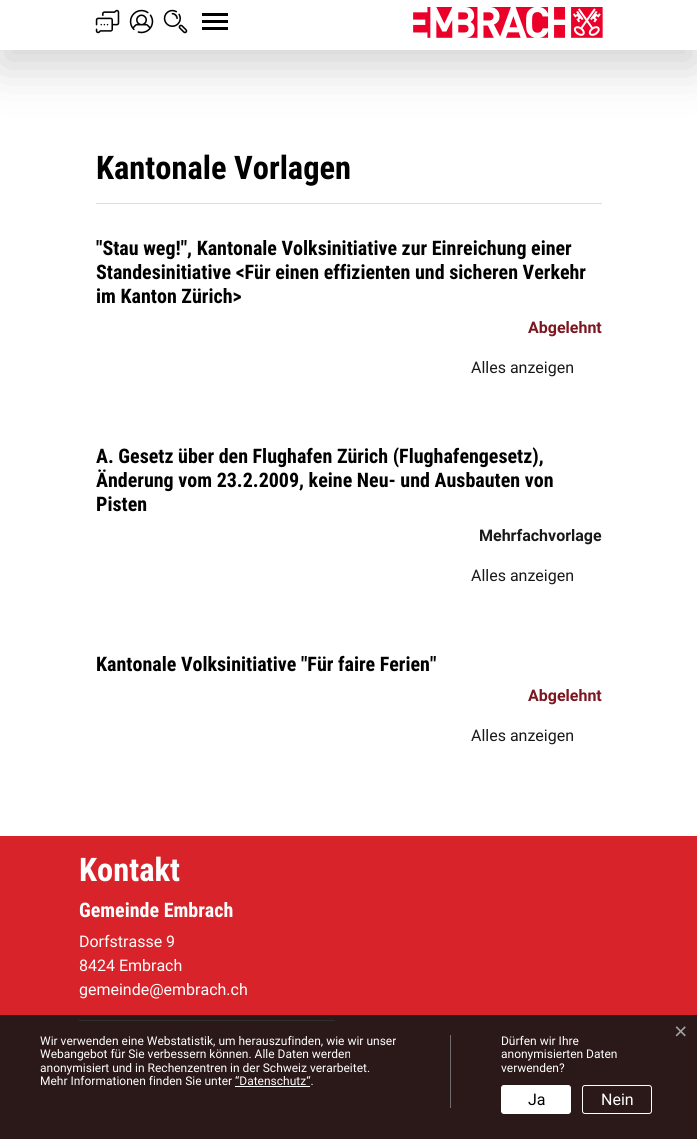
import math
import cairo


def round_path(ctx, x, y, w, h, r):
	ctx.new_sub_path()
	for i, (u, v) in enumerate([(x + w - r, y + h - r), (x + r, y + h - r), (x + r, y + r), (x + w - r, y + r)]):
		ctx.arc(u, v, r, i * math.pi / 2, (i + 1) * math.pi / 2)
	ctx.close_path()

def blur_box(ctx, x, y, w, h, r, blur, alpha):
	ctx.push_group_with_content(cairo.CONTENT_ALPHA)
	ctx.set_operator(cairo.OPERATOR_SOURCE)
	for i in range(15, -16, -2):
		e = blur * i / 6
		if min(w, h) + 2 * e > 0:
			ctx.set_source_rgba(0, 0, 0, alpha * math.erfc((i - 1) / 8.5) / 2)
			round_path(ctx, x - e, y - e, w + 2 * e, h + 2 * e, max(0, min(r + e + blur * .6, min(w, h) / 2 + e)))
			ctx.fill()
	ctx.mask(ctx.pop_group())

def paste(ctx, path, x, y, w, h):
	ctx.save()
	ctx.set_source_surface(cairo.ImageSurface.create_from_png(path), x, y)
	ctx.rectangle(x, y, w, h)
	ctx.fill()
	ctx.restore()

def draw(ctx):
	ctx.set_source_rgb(1, 1, 1)
	ctx.paint()
	ctx.set_source_rgb(0, 0, 0)
	blur_box(ctx, 0, 16, 697, 50, 0, 24, 0.18)
	ctx.set_source_rgb(1, 1, 1)
	ctx.rectangle(0, 0, 697, 50)
	ctx.fill()
	paste(ctx, 'media/1.png', 95, 9, 25, 25)
	paste(ctx, 'media/2.png', 129, 9, 25, 25)
	paste(ctx, 'media/3.png', 163, 9, 25, 25)
	ctx.set_source_rgb(0, 0, 0)
	ctx.rectangle(202, 13, 26, 3)
	ctx.rectangle(202, 20, 26, 3)
	ctx.rectangle(202, 27, 26, 3)
	ctx.fill()
	paste(ctx, 'media/4.png', 413, 7, 190, 31)
	ctx.select_font_face('Roboto Condensed', cairo.FONT_SLANT_NORMAL, cairo.FONT_WEIGHT_BOLD)
	ctx.set_font_size(32.5)
	ctx.move_to(96, 179)
	ctx.show_text('Kantonale Vorlagen')
	ctx.set_source_rgb(0.867, 0.867, 0.867)
	ctx.rectangle(96, 203, 506, 1)
	ctx.fill()
	ctx.set_font_size(20)
	ctx.set_source_rgb(0, 0, 0)
	for x, y, s in [
		(96, 255, '"Stau weg!", Kantonale Volksinitiative zur Einreichung einer'),
		(96, 279, 'Standesinitiative <Für einen effizienten und sicheren Verkehr'),
		(96, 303, 'im Kanton Zürich>'),
	]:
		ctx.move_to(x, y)
		ctx.show_text(s)
	ctx.select_font_face('Roboto', cairo.FONT_SLANT_NORMAL, cairo.FONT_WEIGHT_BOLD)
	ctx.set_font_size(16)
	ctx.set_source_rgb(0.486, 0.086, 0.122)
	ctx.move_to(528, 333)
	ctx.show_text('Abgelehnt')
	ctx.select_font_face('Roboto')
	ctx.set_source_rgb(0.102, 0.098, 0.098)
	ctx.move_to(471, 373)
	ctx.show_text('Alles anzeigen')
	ctx.select_font_face('Roboto Condensed', cairo.FONT_SLANT_NORMAL, cairo.FONT_WEIGHT_BOLD)
	ctx.set_font_size(20)
	ctx.set_source_rgb(0, 0, 0)
	for x, y, s in [
		(96, 463, 'A. Gesetz über den Flughafen Zürich (Flughafengesetz),'),
		(96, 487, 'Änderung vom 23.2.2009, keine Neu- und Ausbauten von'),
		(96, 511, 'Pisten'),
	]:
		ctx.move_to(x, y)
		ctx.show_text(s)
	ctx.select_font_face('Roboto', cairo.FONT_SLANT_NORMAL, cairo.FONT_WEIGHT_BOLD)
	ctx.set_font_size(16)
	ctx.set_source_rgb(0.102, 0.098, 0.098)
	ctx.move_to(479, 541)
	ctx.show_text('Mehrfachvorlage')
	ctx.select_font_face('Roboto')
	ctx.move_to(471, 581)
	ctx.show_text('Alles anzeigen')
	ctx.select_font_face('Roboto Condensed', cairo.FONT_SLANT_NORMAL, cairo.FONT_WEIGHT_BOLD)
	ctx.set_font_size(20)
	ctx.set_source_rgb(0, 0, 0)
	ctx.move_to(96, 671)
	ctx.show_text('Kantonale Volksinitiative "Für faire Ferien"')
	ctx.select_font_face('Roboto', cairo.FONT_SLANT_NORMAL, cairo.FONT_WEIGHT_BOLD)
	ctx.set_font_size(16)
	ctx.set_source_rgb(0.486, 0.086, 0.122)
	ctx.move_to(528, 701)
	ctx.show_text('Abgelehnt')
	ctx.select_font_face('Roboto')
	ctx.set_source_rgb(0.102, 0.098, 0.098)
	ctx.move_to(471, 741)
	ctx.show_text('Alles anzeigen')
	ctx.set_source_rgb(0.847, 0.137, 0.165)
	ctx.rectangle(0, 836, 697, 303)
	ctx.fill()
	ctx.select_font_face('Roboto Condensed', cairo.FONT_SLANT_NORMAL, cairo.FONT_WEIGHT_BOLD)
	ctx.set_font_size(32.5)
	ctx.set_source_rgb(1, 1, 1)
	ctx.move_to(79, 881)
	ctx.show_text('Kontakt')
	ctx.set_font_size(20)
	ctx.move_to(79, 917)
	ctx.show_text('Gemeinde Embrach')
	ctx.select_font_face('Roboto')
	ctx.set_font_size(16)
	for x, y, s in [
		(79, 947, 'Dorfstrasse 9'),
		(79, 971, '8424 Embrach'),
		(79, 995, 'gemeinde@embrach.ch'),
	]:
		ctx.move_to(x, y)
		ctx.show_text(s)
	ctx.rectangle(79, 1020, 256, 1)
	ctx.fill()
	ctx.set_source_rgba(0.098, 0.098, 0.098, 0.9)
	ctx.rectangle(0, 1015, 697, 124)
	ctx.fill()
	ctx.select_font_face('Liberation Sans')
	ctx.set_font_size(23)
	ctx.set_source_rgb(0.635, 0.635, 0.635)
	ctx.move_to(674, 1039)
	ctx.show_text('×')
	ctx.set_source_rgb(0.427, 0.427, 0.427)
	ctx.rectangle(450, 1035, 1, 73)
	ctx.fill()
	ctx.select_font_face('Roboto')
	ctx.set_font_size(12)
	ctx.set_source_rgb(1, 1, 1)
	for x, y, s in [
		(40, 1045, 'Wir verwenden eine Webstatistik, um herauszufinden, wie wir unser'),
		(40, 1058, 'Webangebot für Sie verbessern können. Alle Daten werden'),
		(40, 1072, 'anonymisiert und in Rechenzentren in der Schweiz verarbeitet.'),
		(40, 1085, 'Mehr Informationen finden Sie unter “Datenschutz“.'),
	]:
		ctx.move_to(x, y)
		ctx.show_text(s)
	ctx.rectangle(235, 1086, 75, 1)
	ctx.fill()
	for x, y, s in [
		(501, 1045, 'Dürfen wir Ihre'),
		(501, 1058, 'anonymisierten Daten'),
		(501, 1072, 'verwenden?'),
	]:
		ctx.move_to(x, y)
		ctx.show_text(s)
	round_path(ctx, 501.5, 1085.5, 69, 28, 2.5)
	ctx.fill_preserve()
	ctx.set_line_width(1)
	ctx.stroke()
	ctx.set_font_size(16)
	ctx.set_source_rgb(0, 0, 0)
	ctx.move_to(528, 1105)
	ctx.show_text('Ja')
	round_path(ctx, 582.5, 1085.5, 69, 28, 2.5)
	ctx.set_source_rgb(1, 1, 1)
	ctx.stroke()
	ctx.move_to(601, 1105)
	ctx.show_text('Nein')


surface = cairo.ImageSurface(cairo.FORMAT_RGB24, 697, 1139)
ctx = cairo.Context(surface)
options = cairo.FontOptions()
options.set_hint_metrics(cairo.HINT_METRICS_OFF)
options.set_hint_style(cairo.HINT_STYLE_NONE)
ctx.set_font_options(options)
ctx.set_miter_limit(4)
draw(ctx)
surface.write_to_png('image.png')
